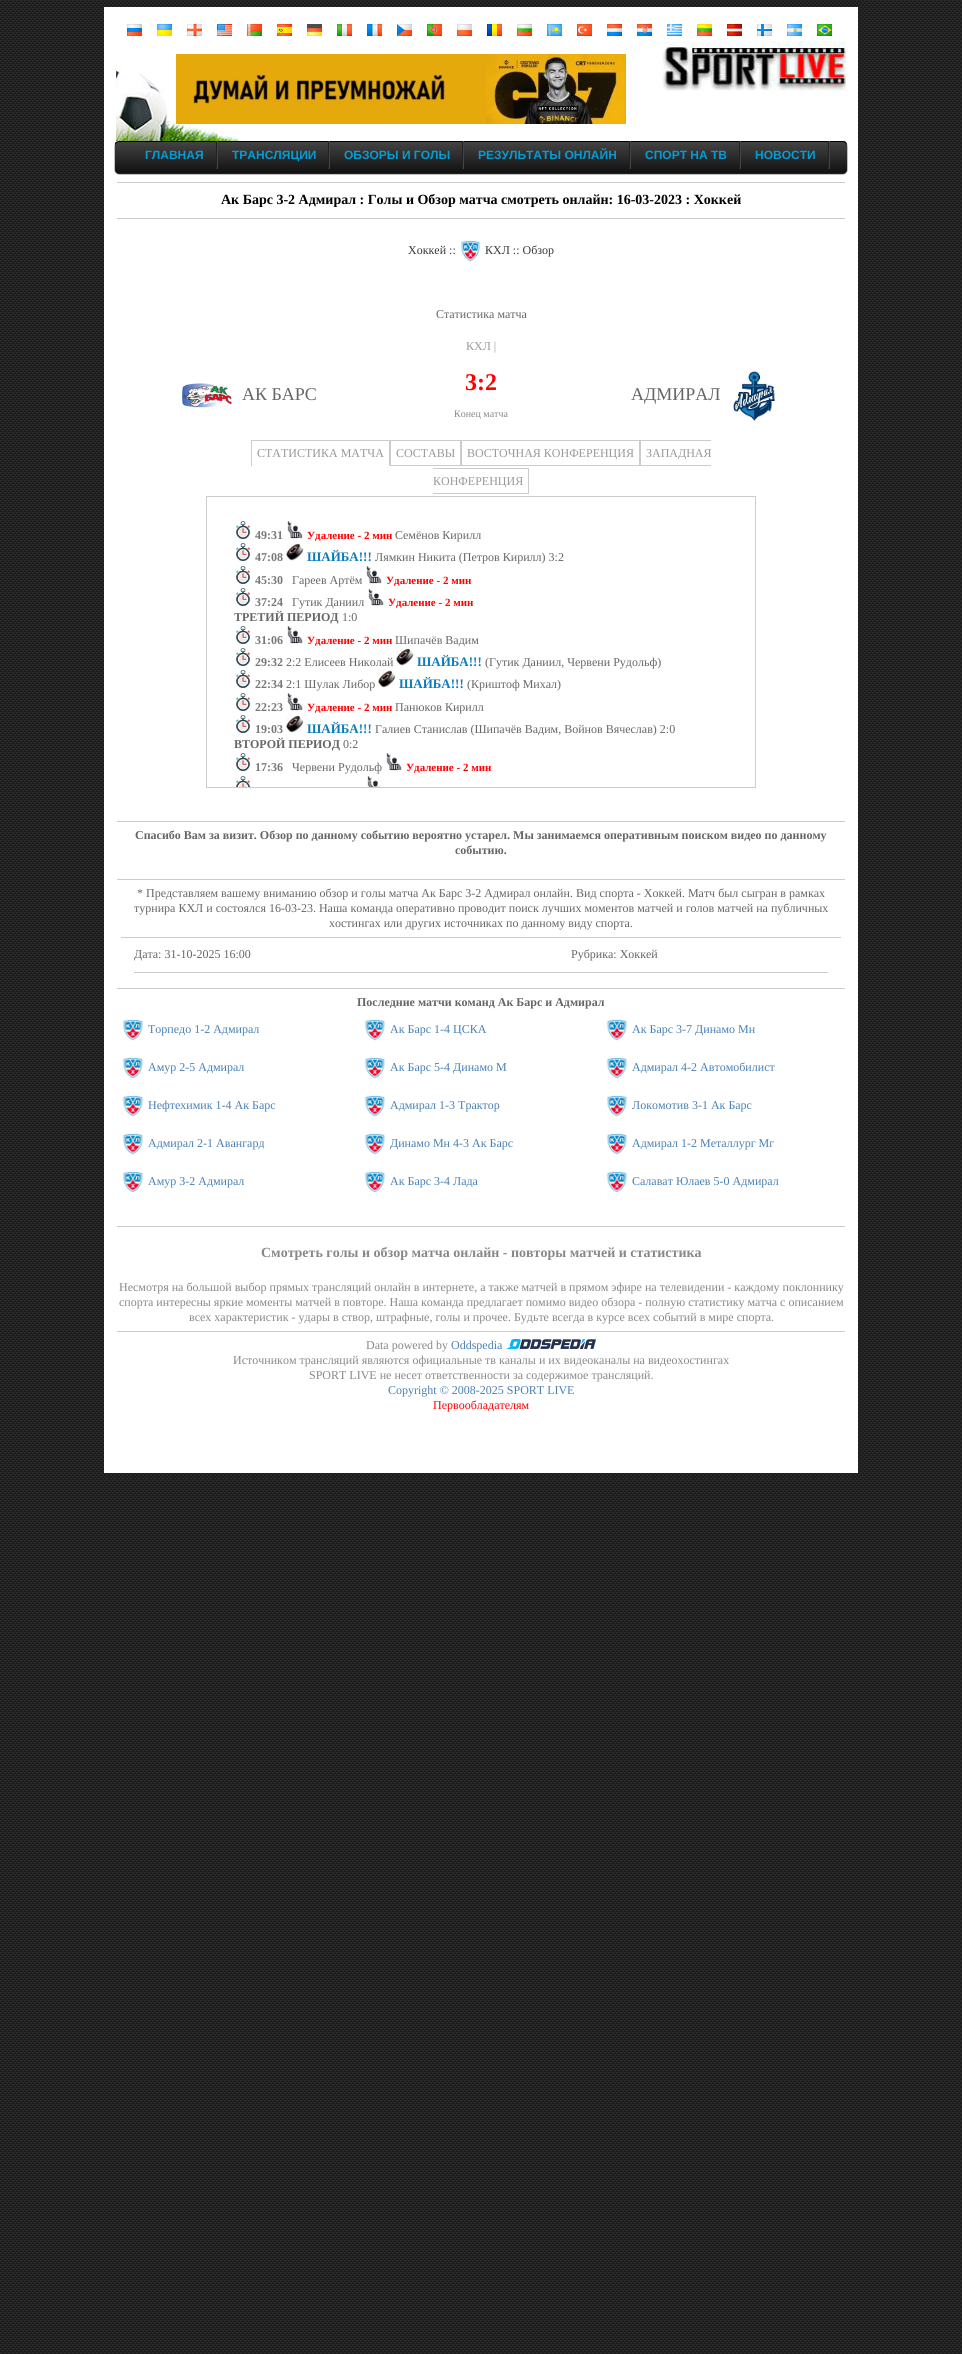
import math
import cairo


def round_path(ctx, x, y, w, h, r):
	ctx.new_sub_path()
	for i, (u, v) in enumerate([(x + w - r, y + h - r), (x + r, y + h - r), (x + r, y + r), (x + w - r, y + r)]):
		ctx.arc(u, v, r, i * math.pi / 2, (i + 1) * math.pi / 2)
	ctx.close_path()

def blur_box(ctx, x, y, w, h, r, blur, alpha):
	ctx.push_group_with_content(cairo.CONTENT_ALPHA)
	ctx.set_operator(cairo.OPERATOR_SOURCE)
	for i in range(15, -16, -2):
		e = blur * i / 6
		if min(w, h) + 2 * e > 0:
			ctx.set_source_rgba(0, 0, 0, alpha * math.erfc((i - 1) / 8.5) / 2)
			round_path(ctx, x - e, y - e, w + 2 * e, h + 2 * e, max(0, min(r + e + blur * .6, min(w, h) / 2 + e)))
			ctx.fill()
	ctx.mask(ctx.pop_group())

def paste(ctx, path, x, y, w, h):
	ctx.save()
	ctx.set_source_surface(cairo.ImageSurface.create_from_png(path), x, y)
	ctx.rectangle(x, y, w, h)
	ctx.fill()
	ctx.restore()

def draw(ctx):
	ctx.set_source_rgb(1, 1, 1)
	ctx.paint()
	paste(ctx, 'media/1.png', 0, 0, 962, 2354)
	ctx.set_source_rgb(1, 1, 1)
	ctx.rectangle(104, 7, 754, 1466)
	ctx.fill()
	paste(ctx, 'media/2.png', 127, 24, 705, 12)
	paste(ctx, 'media/3.png', 116, 41, 730, 100)
	paste(ctx, 'media/4.png', 176, 54, 450, 70)
	ctx.set_source_rgb(0, 0, 0)
	blur_box(ctx, 115, 142, 732, 32, 4, 0.5, 1)
	gradient = cairo.LinearGradient(481, 141, 481, 173)
	gradient.add_color_stop_rgba(0, 0.267, 0.267, 0.267, 1)
	gradient.add_color_stop_rgba(1, 0.067, 0.067, 0.067, 1)
	ctx.set_source(gradient)
	round_path(ctx, 115, 141, 732, 32, 4)
	ctx.fill()
	ctx.set_source_rgb(0, 0, 0)
	ctx.new_path()
	ctx.move_to(119, 142)
	ctx.line_to(843, 142)
	ctx.curve_to(845, 142, 847, 144, 847, 146)
	ctx.curve_to(847, 143, 846, 141, 843, 141)
	ctx.line_to(119, 141)
	ctx.line_to(116, 142)
	ctx.line_to(115, 143)
	ctx.line_to(115, 146)
	ctx.curve_to(115, 144, 117, 142, 119, 142)
	ctx.close_path()
	ctx.fill()
	ctx.set_source_rgb(0.267, 0.267, 0.267)
	ctx.rectangle(217, 141, 1, 28)
	ctx.fill()
	ctx.set_source_rgb(0.133, 0.133, 0.133)
	ctx.rectangle(216, 141, 1, 28)
	ctx.fill()
	ctx.select_font_face('Liberation Sans', cairo.FONT_SLANT_NORMAL, cairo.FONT_WEIGHT_BOLD)
	ctx.set_font_size(12)
	ctx.set_source_rgb(0.02, 0.608, 0.827)
	ctx.move_to(145, 159)
	ctx.show_text('ГЛАВНАЯ')
	ctx.set_source_rgb(0.267, 0.267, 0.267)
	ctx.rectangle(329, 141, 1, 28)
	ctx.fill()
	ctx.set_source_rgb(0.133, 0.133, 0.133)
	ctx.rectangle(328, 141, 1, 28)
	ctx.fill()
	ctx.set_source_rgb(0.02, 0.608, 0.827)
	ctx.move_to(232, 159)
	ctx.show_text('ТРАНСЛЯЦИИ')
	ctx.set_source_rgb(0.267, 0.267, 0.267)
	ctx.rectangle(463, 141, 1, 28)
	ctx.fill()
	ctx.set_source_rgb(0.133, 0.133, 0.133)
	ctx.rectangle(462, 141, 1, 28)
	ctx.fill()
	ctx.set_source_rgb(0.02, 0.608, 0.827)
	ctx.move_to(344, 159)
	ctx.show_text('ОБЗОРЫ И ГОЛЫ')
	ctx.set_source_rgb(0.267, 0.267, 0.267)
	ctx.rectangle(630, 141, 1, 28)
	ctx.fill()
	ctx.set_source_rgb(0.133, 0.133, 0.133)
	ctx.rectangle(629, 141, 1, 28)
	ctx.fill()
	ctx.set_source_rgb(0.02, 0.608, 0.827)
	ctx.move_to(478, 159)
	ctx.show_text('РЕЗУЛЬТАТЫ ОНЛАЙН')
	ctx.set_source_rgb(0.267, 0.267, 0.267)
	ctx.rectangle(740, 141, 1, 28)
	ctx.fill()
	ctx.set_source_rgb(0.133, 0.133, 0.133)
	ctx.rectangle(739, 141, 1, 28)
	ctx.fill()
	ctx.set_source_rgb(0.02, 0.608, 0.827)
	ctx.move_to(645, 159)
	ctx.show_text('СПОРТ НА ТВ')
	ctx.set_source_rgb(0.267, 0.267, 0.267)
	ctx.rectangle(829, 141, 1, 28)
	ctx.fill()
	ctx.set_source_rgb(0.133, 0.133, 0.133)
	ctx.rectangle(828, 141, 1, 28)
	ctx.fill()
	ctx.set_source_rgb(0.02, 0.608, 0.827)
	ctx.move_to(755, 159)
	ctx.show_text('НОВОСТИ')
	ctx.set_source_rgb(0.8, 0.8, 0.8)
	ctx.rectangle(117, 182, 728, 1)
	ctx.fill()
	ctx.select_font_face('Liberation Serif', cairo.FONT_SLANT_NORMAL, cairo.FONT_WEIGHT_BOLD)
	ctx.set_font_size(14)
	ctx.set_source_rgb(0, 0, 0)
	ctx.move_to(221, 204)
	ctx.show_text('Ак Барс 3-2 Адмирал : Голы и Обзор матча смотреть онлайн: 16-03-2023 : Хоккей')
	ctx.set_source_rgb(0.8, 0.8, 0.8)
	ctx.rectangle(117, 218, 728, 1)
	ctx.fill()
	ctx.select_font_face('Liberation Serif')
	ctx.set_font_size(12)
	ctx.set_source_rgb(0.216, 0.216, 0.216)
	ctx.move_to(408, 254)
	ctx.show_text('Хоккей ::')
	paste(ctx, 'media/5.png', 460, 240, 20, 22)
	ctx.move_to(485, 254)
	ctx.show_text('КХЛ :: Обзор')
	ctx.set_source_rgb(0.4, 0.4, 0.4)
	ctx.move_to(436, 318)
	ctx.show_text('Статистика матча')
	ctx.set_source_rgb(0.6, 0.6, 0.6)
	ctx.move_to(466, 350)
	ctx.show_text('КХЛ |')
	paste(ctx, 'media/6.png', 182, 383, 50, 25)
	ctx.set_font_size(18)
	ctx.set_source_rgb(0.4, 0.4, 0.4)
	ctx.move_to(242, 400)
	ctx.show_text('АК БАРС')
	ctx.select_font_face('Liberation Serif', cairo.FONT_SLANT_NORMAL, cairo.FONT_WEIGHT_BOLD)
	ctx.set_font_size(24)
	ctx.set_source_rgb(1, 0, 0)
	ctx.move_to(465, 390)
	ctx.show_text('3:2')
	ctx.select_font_face('Liberation Serif')
	ctx.set_font_size(10)
	ctx.set_source_rgb(0.533, 0.533, 0.533)
	ctx.move_to(454, 417)
	ctx.show_text('Конец матча')
	ctx.set_font_size(18)
	ctx.set_source_rgb(0.4, 0.4, 0.4)
	ctx.move_to(631, 400)
	ctx.show_text('АДМИРАЛ')
	paste(ctx, 'media/7.png', 732, 370, 44, 51)
	ctx.set_font_size(12)
	ctx.set_source_rgb(0.6, 0.6, 0.6)
	ctx.move_to(257, 457)
	ctx.show_text('СТАТИСТИКА МАТЧА')
	ctx.set_source_rgb(0.8, 0.8, 0.8)
	ctx.rectangle(251, 440, 139, 1)
	ctx.fill()
	ctx.new_path()
	ctx.move_to(390, 440)
	ctx.line_to(390, 467)
	ctx.line_to(389, 465)
	ctx.line_to(389, 441)
	ctx.close_path()
	ctx.fill()
	ctx.set_source_rgb(1, 1, 1)
	ctx.new_path()
	ctx.move_to(390, 467)
	ctx.line_to(251, 467)
	ctx.line_to(252, 465)
	ctx.line_to(389, 465)
	ctx.close_path()
	ctx.fill()
	ctx.set_source_rgb(0.8, 0.8, 0.8)
	ctx.new_path()
	ctx.move_to(251, 467)
	ctx.line_to(251, 440)
	ctx.line_to(252, 441)
	ctx.line_to(252, 465)
	ctx.close_path()
	ctx.fill()
	ctx.rectangle(390.5, 440.5, 70, 25)
	ctx.set_line_width(1)
	ctx.stroke()
	ctx.set_source_rgb(0.6, 0.6, 0.6)
	ctx.move_to(396, 457)
	ctx.show_text('СОСТАВЫ')
	ctx.rectangle(461.5, 440.5, 178, 25)
	ctx.set_source_rgb(0.8, 0.8, 0.8)
	ctx.stroke()
	ctx.set_source_rgb(0.6, 0.6, 0.6)
	ctx.move_to(467, 457)
	ctx.show_text('ВОСТОЧНАЯ КОНФЕРЕНЦИЯ')
	ctx.move_to(646, 457)
	ctx.show_text('ЗАПАДНАЯ')
	ctx.set_source_rgb(0.8, 0.8, 0.8)
	ctx.rectangle(640, 440, 71, 1)
	ctx.rectangle(640, 465, 71, 1)
	ctx.rectangle(640, 440, 1, 26)
	ctx.fill()
	ctx.set_source_rgb(0.6, 0.6, 0.6)
	ctx.move_to(433, 485)
	ctx.show_text('КОНФЕРЕНЦИЯ')
	ctx.set_source_rgb(0.8, 0.8, 0.8)
	ctx.rectangle(433, 468, 96, 1)
	ctx.rectangle(528, 468, 1, 26)
	ctx.rectangle(433, 493, 96, 1)
	ctx.fill()
	ctx.rectangle(206.5, 496.5, 549, 291)
	ctx.stroke()
	paste(ctx, 'media/8.png', 236, 521, 15, 18)
	ctx.select_font_face('Liberation Serif', cairo.FONT_SLANT_NORMAL, cairo.FONT_WEIGHT_BOLD)
	ctx.set_source_rgb(0.467, 0.467, 0.467)
	ctx.move_to(255, 539)
	ctx.show_text('49:31')
	paste(ctx, 'media/9.png', 287, 521, 16, 18)
	ctx.set_font_size(11)
	ctx.set_source_rgb(1, 0, 0)
	ctx.move_to(307, 539)
	ctx.show_text('Удаление - 2 мин')
	ctx.select_font_face('Liberation Serif')
	ctx.set_font_size(12)
	ctx.set_source_rgb(0.4, 0.4, 0.4)
	ctx.move_to(395, 539)
	ctx.show_text('Семёнов Кирилл')
	paste(ctx, 'media/10.png', 236, 543, 15, 18)
	ctx.select_font_face('Liberation Serif', cairo.FONT_SLANT_NORMAL, cairo.FONT_WEIGHT_BOLD)
	ctx.set_source_rgb(0.467, 0.467, 0.467)
	ctx.move_to(255, 561)
	ctx.show_text('47:08')
	paste(ctx, 'media/11.png', 286, 543, 18, 18)
	ctx.set_font_size(13)
	ctx.set_source_rgb(0.051, 0.486, 0.737)
	ctx.move_to(307, 561)
	ctx.show_text('ШАЙБА!!!')
	ctx.select_font_face('Liberation Serif')
	ctx.set_font_size(12)
	ctx.set_source_rgb(0.4, 0.4, 0.4)
	ctx.move_to(375, 561)
	ctx.show_text('Лямкин Никита (Петров Кирилл) 3:2')
	paste(ctx, 'media/12.png', 236, 566, 15, 18)
	ctx.select_font_face('Liberation Serif', cairo.FONT_SLANT_NORMAL, cairo.FONT_WEIGHT_BOLD)
	ctx.set_source_rgb(0.467, 0.467, 0.467)
	ctx.move_to(255, 584)
	ctx.show_text('45:30')
	ctx.select_font_face('Liberation Serif')
	ctx.set_source_rgb(0.4, 0.4, 0.4)
	ctx.move_to(292, 584)
	ctx.show_text('Гареев Артём')
	paste(ctx, 'media/9.png', 366, 566, 16, 18)
	ctx.select_font_face('Liberation Serif', cairo.FONT_SLANT_NORMAL, cairo.FONT_WEIGHT_BOLD)
	ctx.set_font_size(11)
	ctx.set_source_rgb(1, 0, 0)
	ctx.move_to(386, 584)
	ctx.show_text('Удаление - 2 мин')
	paste(ctx, 'media/12.png', 236, 588, 15, 18)
	ctx.set_font_size(12)
	ctx.set_source_rgb(0.467, 0.467, 0.467)
	ctx.move_to(255, 606)
	ctx.show_text('37:24')
	ctx.select_font_face('Liberation Serif')
	ctx.set_source_rgb(0.4, 0.4, 0.4)
	ctx.move_to(292, 606)
	ctx.show_text('Гутик Даниил')
	paste(ctx, 'media/13.png', 368, 588, 16, 18)
	ctx.select_font_face('Liberation Serif', cairo.FONT_SLANT_NORMAL, cairo.FONT_WEIGHT_BOLD)
	ctx.set_font_size(11)
	ctx.set_source_rgb(1, 0, 0)
	ctx.move_to(388, 606)
	ctx.show_text('Удаление - 2 мин')
	ctx.set_font_size(12)
	ctx.set_source_rgb(0.4, 0.4, 0.4)
	ctx.move_to(234, 621)
	ctx.show_text('ТРЕТИЙ ПЕРИОД')
	ctx.select_font_face('Liberation Serif')
	ctx.move_to(342, 621)
	ctx.show_text('1:0')
	paste(ctx, 'media/12.png', 236, 626, 15, 18)
	ctx.select_font_face('Liberation Serif', cairo.FONT_SLANT_NORMAL, cairo.FONT_WEIGHT_BOLD)
	ctx.set_source_rgb(0.467, 0.467, 0.467)
	ctx.move_to(255, 644)
	ctx.show_text('31:06')
	paste(ctx, 'media/9.png', 287, 626, 16, 18)
	ctx.set_font_size(11)
	ctx.set_source_rgb(1, 0, 0)
	ctx.move_to(307, 644)
	ctx.show_text('Удаление - 2 мин')
	ctx.select_font_face('Liberation Serif')
	ctx.set_font_size(12)
	ctx.set_source_rgb(0.4, 0.4, 0.4)
	ctx.move_to(395, 644)
	ctx.show_text('Шипачёв Вадим')
	paste(ctx, 'media/14.png', 236, 648, 15, 18)
	ctx.select_font_face('Liberation Serif', cairo.FONT_SLANT_NORMAL, cairo.FONT_WEIGHT_BOLD)
	ctx.set_source_rgb(0.467, 0.467, 0.467)
	ctx.move_to(255, 666)
	ctx.show_text('29:32')
	ctx.select_font_face('Liberation Serif')
	ctx.set_source_rgb(0.4, 0.4, 0.4)
	ctx.move_to(286, 666)
	ctx.show_text('2:2 Елисеев Николай')
	paste(ctx, 'media/11.png', 396, 648, 18, 18)
	ctx.select_font_face('Liberation Serif', cairo.FONT_SLANT_NORMAL, cairo.FONT_WEIGHT_BOLD)
	ctx.set_font_size(13)
	ctx.set_source_rgb(0.051, 0.486, 0.737)
	ctx.move_to(417, 666)
	ctx.show_text('ШАЙБА!!!')
	ctx.select_font_face('Liberation Serif')
	ctx.set_font_size(12)
	ctx.set_source_rgb(0.4, 0.4, 0.4)
	ctx.move_to(485, 666)
	ctx.show_text('(Гутик Даниил, Червени Рудольф)')
	paste(ctx, 'media/12.png', 236, 670, 15, 18)
	ctx.select_font_face('Liberation Serif', cairo.FONT_SLANT_NORMAL, cairo.FONT_WEIGHT_BOLD)
	ctx.set_source_rgb(0.467, 0.467, 0.467)
	ctx.move_to(255, 688)
	ctx.show_text('22:34')
	ctx.select_font_face('Liberation Serif')
	ctx.set_source_rgb(0.4, 0.4, 0.4)
	ctx.move_to(286, 688)
	ctx.show_text('2:1 Шулак Либор')
	paste(ctx, 'media/11.png', 378, 670, 18, 18)
	ctx.select_font_face('Liberation Serif', cairo.FONT_SLANT_NORMAL, cairo.FONT_WEIGHT_BOLD)
	ctx.set_font_size(13)
	ctx.set_source_rgb(0.051, 0.486, 0.737)
	ctx.move_to(399, 688)
	ctx.show_text('ШАЙБА!!!')
	ctx.select_font_face('Liberation Serif')
	ctx.set_font_size(12)
	ctx.set_source_rgb(0.4, 0.4, 0.4)
	ctx.move_to(467, 688)
	ctx.show_text('(Криштоф Михал)')
	paste(ctx, 'media/12.png', 236, 693, 15, 18)
	ctx.select_font_face('Liberation Serif', cairo.FONT_SLANT_NORMAL, cairo.FONT_WEIGHT_BOLD)
	ctx.set_source_rgb(0.467, 0.467, 0.467)
	ctx.move_to(255, 711)
	ctx.show_text('22:23')
	paste(ctx, 'media/9.png', 287, 693, 16, 18)
	ctx.set_font_size(11)
	ctx.set_source_rgb(1, 0, 0)
	ctx.move_to(307, 711)
	ctx.show_text('Удаление - 2 мин')
	ctx.select_font_face('Liberation Serif')
	ctx.set_font_size(12)
	ctx.set_source_rgb(0.4, 0.4, 0.4)
	ctx.move_to(395, 711)
	ctx.show_text('Панюков Кирилл')
	paste(ctx, 'media/12.png', 236, 715, 15, 18)
	ctx.select_font_face('Liberation Serif', cairo.FONT_SLANT_NORMAL, cairo.FONT_WEIGHT_BOLD)
	ctx.set_source_rgb(0.467, 0.467, 0.467)
	ctx.move_to(255, 733)
	ctx.show_text('19:03')
	paste(ctx, 'media/11.png', 286, 715, 18, 18)
	ctx.set_font_size(13)
	ctx.set_source_rgb(0.051, 0.486, 0.737)
	ctx.move_to(307, 733)
	ctx.show_text('ШАЙБА!!!')
	ctx.select_font_face('Liberation Serif')
	ctx.set_font_size(12)
	ctx.set_source_rgb(0.4, 0.4, 0.4)
	ctx.move_to(375, 733)
	ctx.show_text('Галиев Станислав (Шипачёв Вадим, Войнов Вячеслав) 2:0')
	ctx.select_font_face('Liberation Serif', cairo.FONT_SLANT_NORMAL, cairo.FONT_WEIGHT_BOLD)
	ctx.move_to(234, 748)
	ctx.show_text('ВТОРОЙ ПЕРИОД')
	ctx.select_font_face('Liberation Serif')
	ctx.move_to(343, 748)
	ctx.show_text('0:2')
	paste(ctx, 'media/12.png', 236, 753, 15, 18)
	ctx.select_font_face('Liberation Serif', cairo.FONT_SLANT_NORMAL, cairo.FONT_WEIGHT_BOLD)
	ctx.set_source_rgb(0.467, 0.467, 0.467)
	ctx.move_to(255, 771)
	ctx.show_text('17:36')
	ctx.select_font_face('Liberation Serif')
	ctx.set_source_rgb(0.4, 0.4, 0.4)
	ctx.move_to(292, 771)
	ctx.show_text('Червени Рудольф')
	paste(ctx, 'media/9.png', 386, 753, 16, 18)
	ctx.select_font_face('Liberation Serif', cairo.FONT_SLANT_NORMAL, cairo.FONT_WEIGHT_BOLD)
	ctx.set_font_size(11)
	ctx.set_source_rgb(1, 0, 0)
	ctx.move_to(406, 771)
	ctx.show_text('Удаление - 2 мин')
	paste(ctx, 'media/15.png', 236, 776, 15, 11)
	paste(ctx, 'media/16.png', 367, 776, 13, 11)
	ctx.set_source_rgb(0.8, 0.8, 0.8)
	ctx.rectangle(117, 821, 728, 1)
	ctx.fill()
	ctx.set_font_size(12)
	ctx.set_source_rgb(0.4, 0.4, 0.4)
	ctx.move_to(135, 839)
	ctx.show_text('Спасибо Вам за визит. Обзор по данному событию вероятно устарел. Мы занимаемся оперативным поиском видео по данному')
	ctx.move_to(455, 854)
	ctx.show_text('событию.')
	ctx.set_source_rgb(0.8, 0.8, 0.8)
	ctx.rectangle(117, 879, 728, 1)
	ctx.fill()
	ctx.select_font_face('Liberation Serif')
	ctx.set_source_rgb(0.4, 0.4, 0.4)
	for x, y, s in [
		(137, 897, '* Представляем вашему вниманию обзор и голы матча Ак Барс 3-2 Адмирал онлайн. Вид спорта - Хоккей. Матч был сыгран в рамках'),
		(134, 912, 'турнира КХЛ и состоялся 16-03-23. Наша команда оперативно проводит поиск лучших моментов матчей и голов матчей на публичных'),
		(329, 927, 'хостингах или других источниках по данному виду спорта.'),
	]:
		ctx.move_to(x, y)
		ctx.show_text(s)
	ctx.set_source_rgb(0.8, 0.8, 0.8)
	ctx.rectangle(121, 937, 720, 1)
	ctx.fill()
	ctx.set_source_rgb(0.4, 0.4, 0.4)
	ctx.move_to(134, 958)
	ctx.show_text('Дата: 31-10-2025 16:00')
	ctx.move_to(571, 958)
	ctx.show_text('Рубрика: Хоккей')
	ctx.set_source_rgb(0.8, 0.8, 0.8)
	ctx.rectangle(134, 972, 694, 1)
	ctx.fill()
	ctx.rectangle(117, 988, 728, 1)
	ctx.fill()
	ctx.select_font_face('Liberation Serif', cairo.FONT_SLANT_NORMAL, cairo.FONT_WEIGHT_BOLD)
	ctx.set_source_rgb(0.4, 0.4, 0.4)
	ctx.move_to(357, 1006)
	ctx.show_text('Последние матчи команд Ак Барс и Адмирал')
	paste(ctx, 'media/17.png', 122, 1019, 21, 22)
	ctx.select_font_face('Liberation Serif')
	ctx.set_source_rgb(0.286, 0.506, 0.71)
	ctx.move_to(148, 1033)
	ctx.show_text('Торпедо 1-2 Адмирал')
	paste(ctx, 'media/17.png', 364, 1019, 21, 22)
	ctx.move_to(390, 1033)
	ctx.show_text('Ак Барс 1-4 ЦСКА')
	paste(ctx, 'media/17.png', 606, 1019, 21, 22)
	ctx.move_to(632, 1033)
	ctx.show_text('Ак Барс 3-7 Динамо Мн')
	paste(ctx, 'media/17.png', 122, 1057, 21, 22)
	ctx.move_to(148, 1071)
	ctx.show_text('Амур 2-5 Адмирал')
	paste(ctx, 'media/17.png', 364, 1057, 21, 22)
	ctx.move_to(390, 1071)
	ctx.show_text('Ак Барс 5-4 Динамо М')
	paste(ctx, 'media/17.png', 606, 1057, 21, 22)
	ctx.move_to(632, 1071)
	ctx.show_text('Адмирал 4-2 Автомобилист')
	paste(ctx, 'media/17.png', 122, 1095, 21, 22)
	ctx.move_to(148, 1109)
	ctx.show_text('Нефтехимик 1-4 Ак Барс')
	paste(ctx, 'media/17.png', 364, 1095, 21, 22)
	ctx.move_to(390, 1109)
	ctx.show_text('Адмирал 1-3 Трактор')
	paste(ctx, 'media/17.png', 606, 1095, 21, 22)
	ctx.move_to(632, 1109)
	ctx.show_text('Локомотив 3-1 Ак Барс')
	paste(ctx, 'media/17.png', 122, 1133, 21, 22)
	ctx.move_to(148, 1147)
	ctx.show_text('Адмирал 2-1 Авангард')
	paste(ctx, 'media/17.png', 364, 1133, 21, 22)
	ctx.move_to(390, 1147)
	ctx.show_text('Динамо Мн 4-3 Ак Барс')
	paste(ctx, 'media/17.png', 606, 1133, 21, 22)
	ctx.move_to(632, 1147)
	ctx.show_text('Адмирал 1-2 Металлург Мг')
	paste(ctx, 'media/17.png', 122, 1171, 21, 22)
	ctx.move_to(148, 1185)
	ctx.show_text('Амур 3-2 Адмирал')
	paste(ctx, 'media/17.png', 364, 1171, 21, 22)
	ctx.move_to(390, 1185)
	ctx.show_text('Ак Барс 3-4 Лада')
	paste(ctx, 'media/17.png', 606, 1171, 21, 22)
	ctx.move_to(632, 1185)
	ctx.show_text('Салават Юлаев 5-0 Адмирал')
	ctx.set_source_rgb(0.8, 0.8, 0.8)
	ctx.rectangle(117, 1226, 728, 1)
	ctx.fill()
	ctx.select_font_face('Liberation Serif', cairo.FONT_SLANT_NORMAL, cairo.FONT_WEIGHT_BOLD)
	ctx.set_font_size(14)
	ctx.set_source_rgb(0.533, 0.533, 0.533)
	ctx.move_to(261, 1257)
	ctx.show_text('Смотреть голы и обзор матча онлайн - повторы матчей и статистика')
	ctx.select_font_face('Liberation Serif')
	ctx.set_font_size(12)
	for x, y, s in [
		(119, 1291, 'Несмотря на большой выбор прямых трансляций онлайн в интернете, а также матчей в прямом эфире на телевидении - каждому поклоннику'),
		(119, 1306, 'спорта интересны яркие моменты матчей в повторе. Наша команда предлагает помимо видео обзора - полную статистику матча с описанием'),
		(189, 1321, 'всех характеристик - удары в створ, штрафные, голы и прочее. Будьте всегда в курсе всех событий в мире спорта.'),
	]:
		ctx.move_to(x, y)
		ctx.show_text(s)
	ctx.set_source_rgb(0.8, 0.8, 0.8)
	ctx.rectangle(117, 1331, 728, 1)
	ctx.fill()
	ctx.set_source_rgb(0.533, 0.533, 0.533)
	ctx.move_to(366, 1349)
	ctx.show_text('Data powered by')
	ctx.set_source_rgb(0.286, 0.506, 0.71)
	ctx.move_to(451, 1349)
	ctx.show_text('Oddspedia')
	paste(ctx, 'media/18.png', 506, 1339, 90, 10)
	ctx.set_source_rgb(0.533, 0.533, 0.533)
	ctx.move_to(233, 1364)
	ctx.show_text('Источником трансляций являются официальные тв каналы и их видеоканалы на видеохостингах')
	ctx.move_to(309, 1379)
	ctx.show_text('SPORT LIVE не несет ответственности за содержимое трансляций.')
	ctx.set_source_rgb(0.286, 0.506, 0.71)
	ctx.move_to(388, 1394)
	ctx.show_text('Copyright © 2008-2025 SPORT LIVE')
	ctx.set_source_rgb(1, 0, 0)
	ctx.move_to(433, 1409)
	ctx.show_text('Первообладателям')


surface = cairo.ImageSurface(cairo.FORMAT_RGB24, 962, 2354)
ctx = cairo.Context(surface)
options = cairo.FontOptions()
options.set_hint_metrics(cairo.HINT_METRICS_OFF)
options.set_hint_style(cairo.HINT_STYLE_NONE)
ctx.set_font_options(options)
ctx.set_miter_limit(4)
draw(ctx)
surface.write_to_png('image.png')
